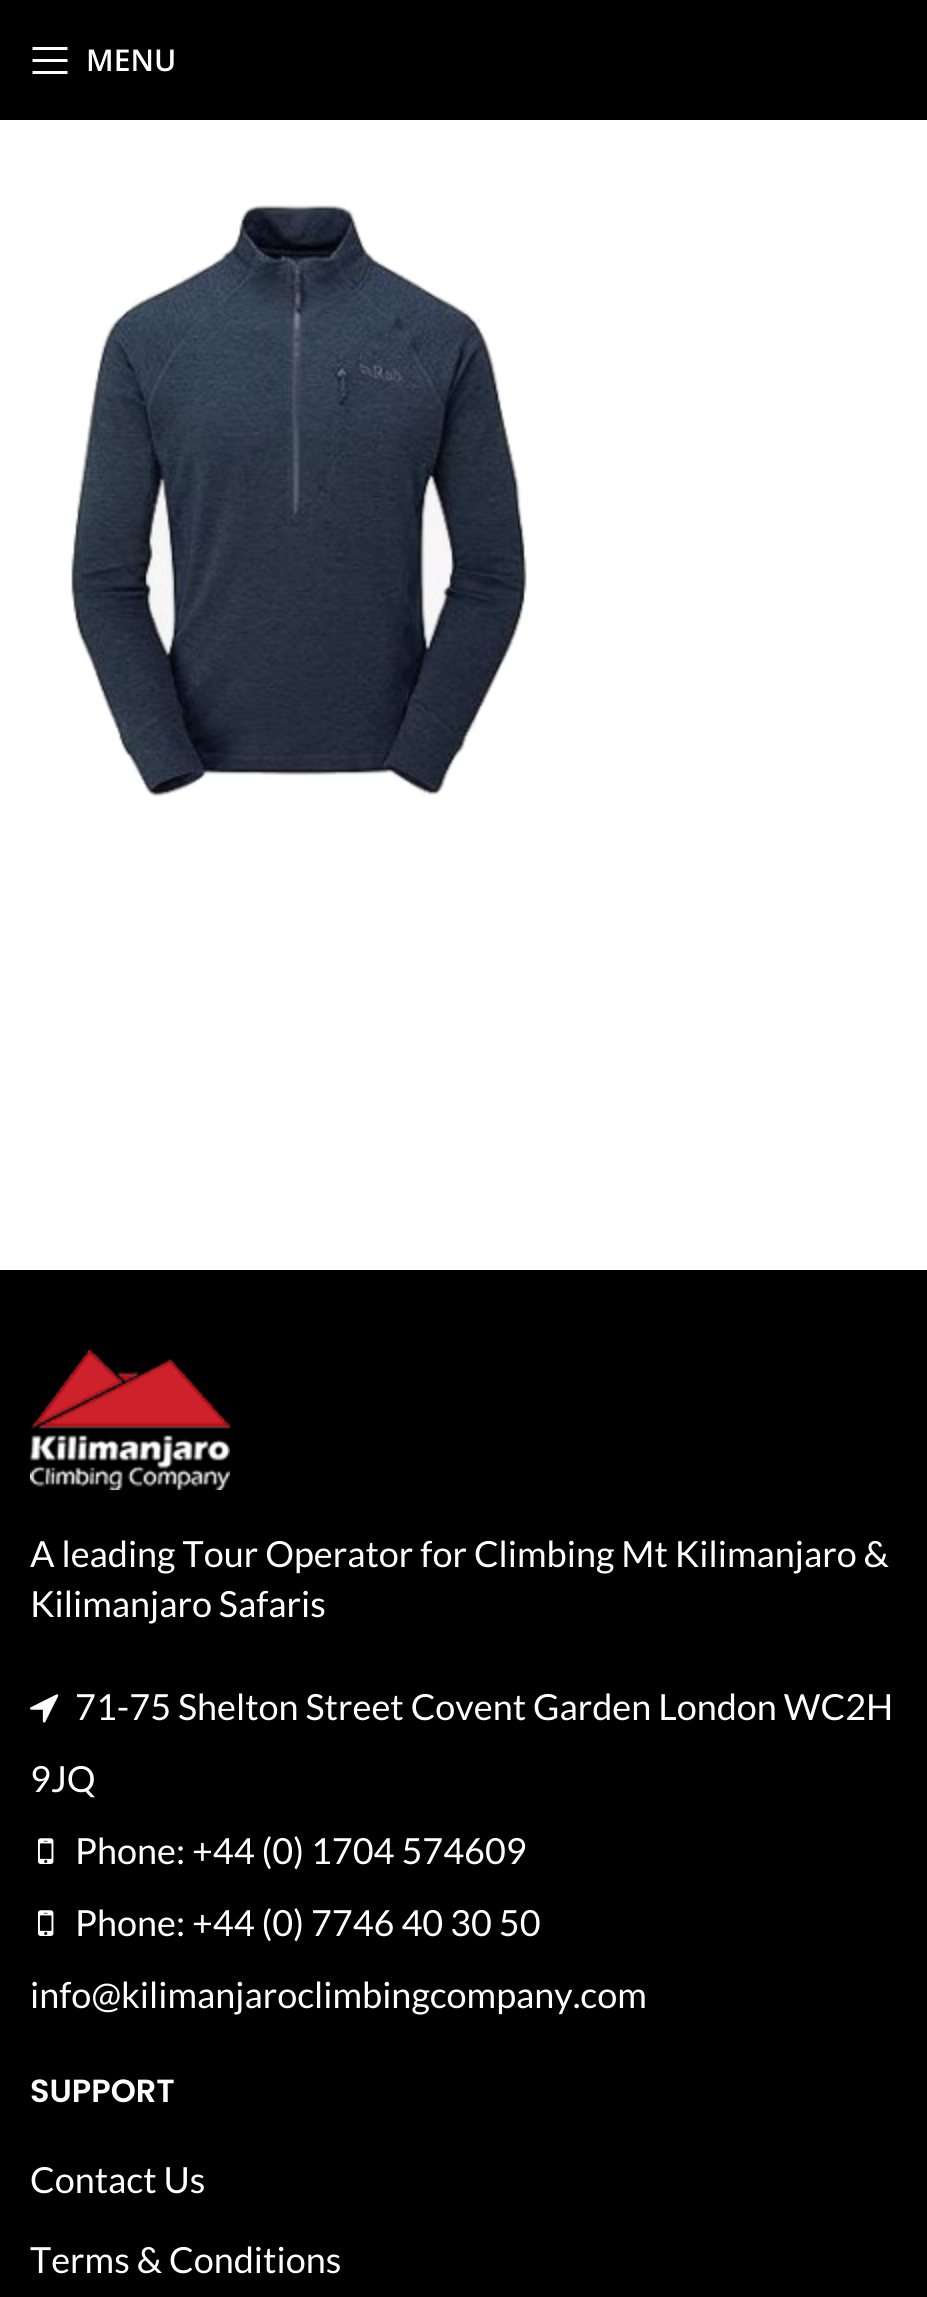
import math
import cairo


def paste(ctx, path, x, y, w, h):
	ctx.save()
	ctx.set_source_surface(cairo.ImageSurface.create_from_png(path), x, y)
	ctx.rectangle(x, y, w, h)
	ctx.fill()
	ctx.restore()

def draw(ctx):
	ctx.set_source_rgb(1, 1, 1)
	ctx.paint()
	ctx.set_source_rgb(0, 0, 0)
	ctx.rectangle(0, 0, 927, 120)
	ctx.fill()
	ctx.set_source_rgb(1, 1, 1)
	ctx.new_path()
	ctx.move_to(32.5, 50)
	ctx.line_to(67.5, 50)
	ctx.line_to(67.5, 47)
	ctx.line_to(32.5, 47)
	ctx.close_path()
	ctx.move_to(32.5, 62)
	ctx.line_to(67.5, 62)
	ctx.line_to(67.5, 59)
	ctx.line_to(32.5, 59)
	ctx.close_path()
	ctx.move_to(32.5, 74)
	ctx.line_to(67.5, 74)
	ctx.line_to(67.5, 71)
	ctx.line_to(32.5, 71)
	ctx.close_path()
	ctx.fill()
	ctx.select_font_face('Open Sans SemiBold')
	ctx.set_font_size(30)
	ctx.move_to(86, 71)
	ctx.show_text('MENU')
	paste(ctx, 'media/1.png', 71, 205, 456, 592)
	ctx.set_source_rgb(0, 0, 0)
	ctx.rectangle(0, 1270, 927, 1027)
	ctx.fill()
	paste(ctx, 'media/2.png', 30, 1350, 200, 140)
	ctx.select_font_face('Lato')
	ctx.set_font_size(36)
	ctx.set_source_rgb(1, 1, 1)
	ctx.move_to(30, 1567)
	ctx.show_text('A leading Tour Operator for Climbing Mt Kilimanjaro &')
	ctx.move_to(30, 1617)
	ctx.show_text('Kilimanjaro Safaris')
	paste(ctx, 'media/3.png', 30, 1694, 29, 29)
	ctx.move_to(75, 1720)
	ctx.show_text('71-75 Shelton Street Covent Garden London WC2H')
	ctx.move_to(30, 1792)
	ctx.show_text('9JQ')
	paste(ctx, 'media/4.png', 38, 1838, 16, 26)
	ctx.move_to(75, 1864)
	ctx.show_text('Phone: +44 (0) 1704 574609')
	paste(ctx, 'media/4.png', 38, 1910, 16, 26)
	ctx.move_to(75, 1936)
	ctx.show_text('Phone: +44 (0) 7746 40 30 50')
	ctx.move_to(30, 2008)
	ctx.show_text('info@kilimanjaroclimbingcompany.com')
	ctx.select_font_face('Poppins SemiBold')
	ctx.set_font_size(32)
	ctx.move_to(30, 2102)
	ctx.show_text('SUPPORT')
	ctx.select_font_face('Lato')
	ctx.set_font_size(36)
	ctx.move_to(30, 2193)
	ctx.show_text('Contact Us')
	ctx.move_to(30, 2273)
	ctx.show_text('Terms & Conditions')


surface = cairo.ImageSurface(cairo.FORMAT_RGB24, 927, 2297)
ctx = cairo.Context(surface)
options = cairo.FontOptions()
options.set_hint_metrics(cairo.HINT_METRICS_OFF)
options.set_hint_style(cairo.HINT_STYLE_NONE)
ctx.set_font_options(options)
ctx.set_miter_limit(4)
draw(ctx)
surface.write_to_png('image.png')
